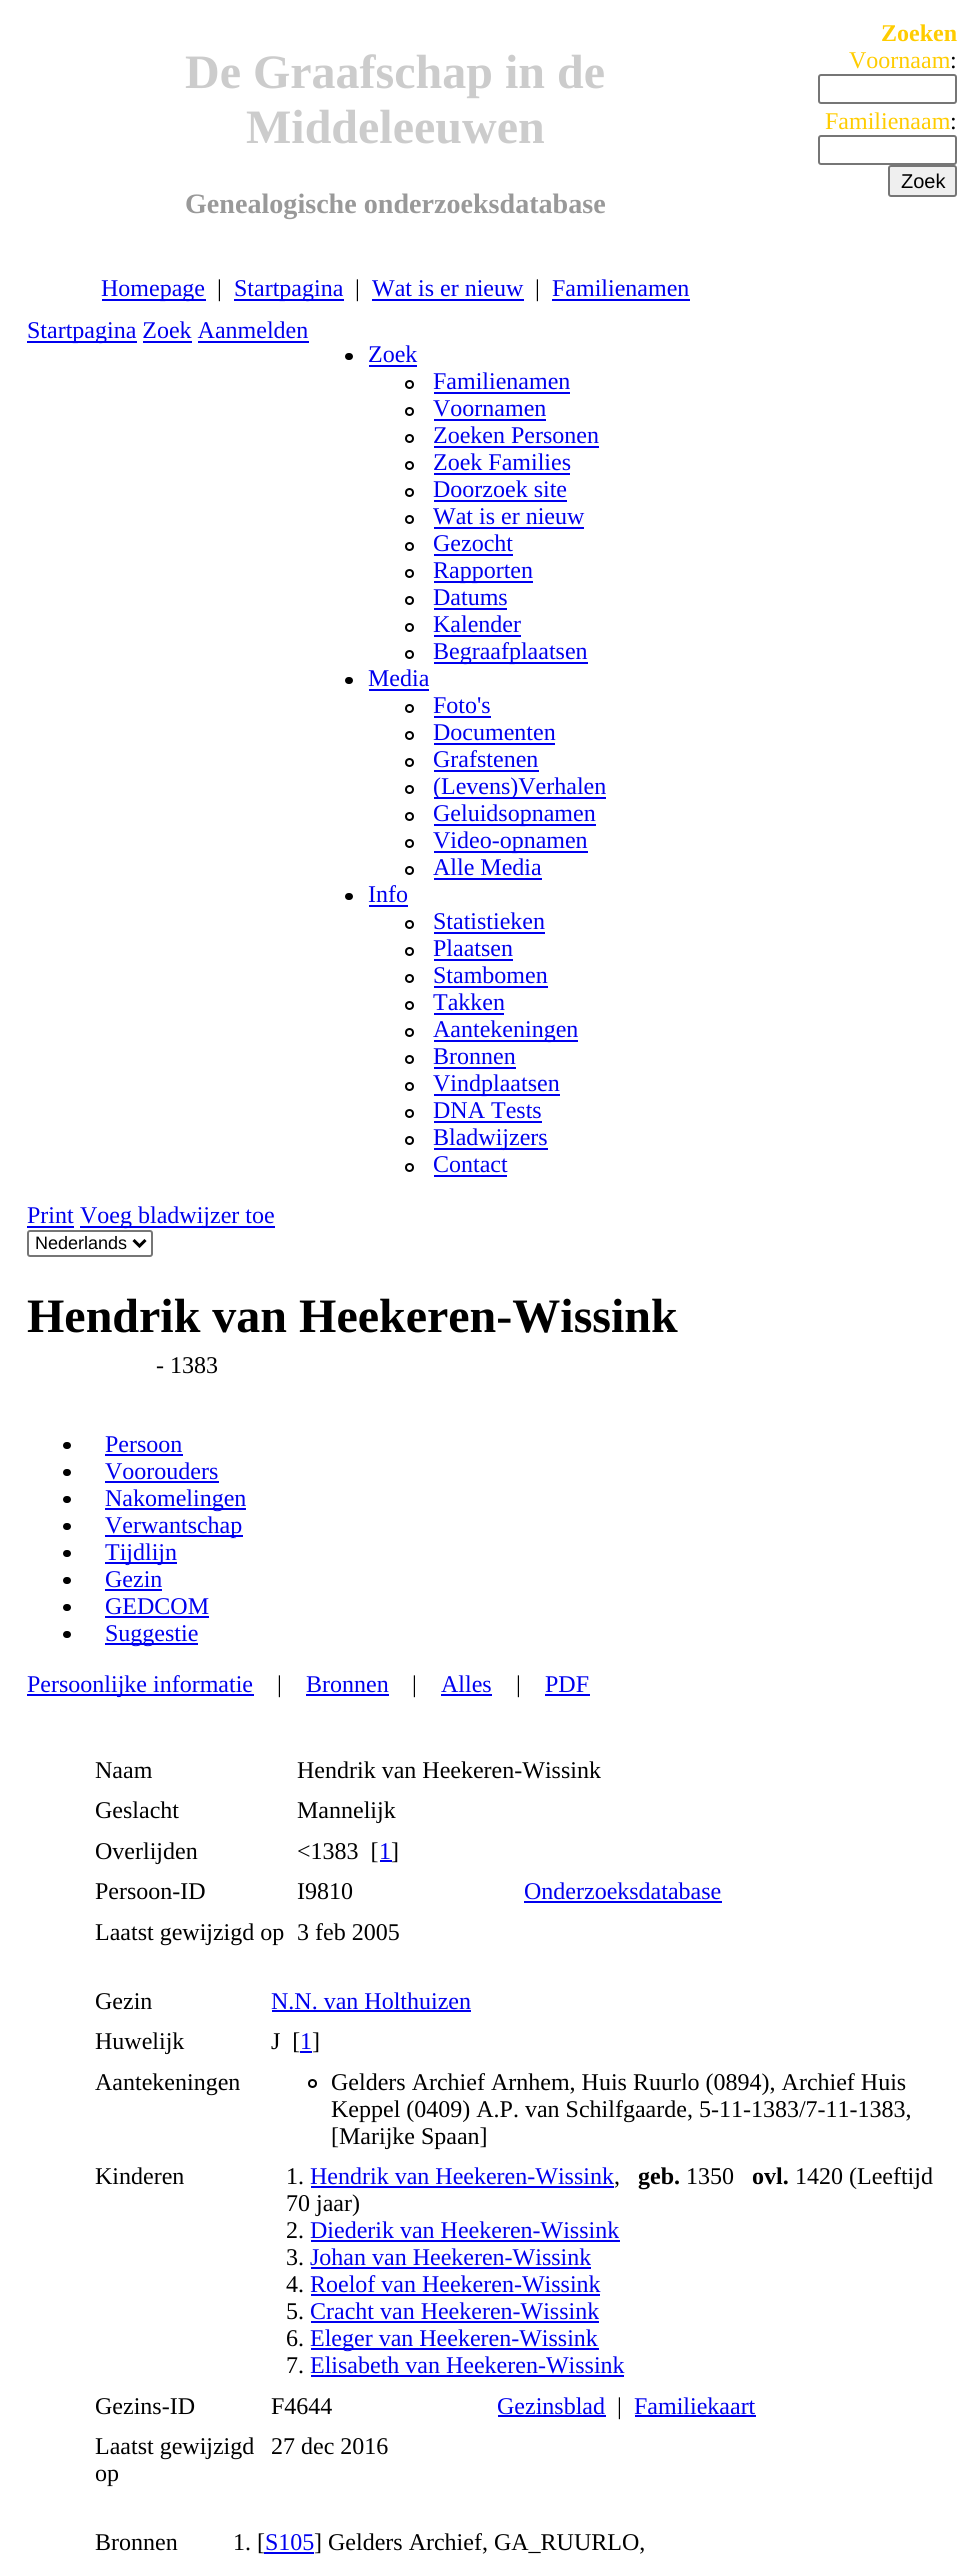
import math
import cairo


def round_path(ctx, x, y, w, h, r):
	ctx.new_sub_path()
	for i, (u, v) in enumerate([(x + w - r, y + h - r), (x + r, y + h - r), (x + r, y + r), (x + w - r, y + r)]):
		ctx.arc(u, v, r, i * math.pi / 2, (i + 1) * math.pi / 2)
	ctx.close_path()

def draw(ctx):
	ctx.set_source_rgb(1, 1, 1)
	ctx.paint()
	ctx.select_font_face('Liberation Serif', cairo.FONT_SLANT_NORMAL, cairo.FONT_WEIGHT_BOLD)
	ctx.set_font_size(48)
	ctx.set_source_rgb(0.8, 0.8, 0.8)
	ctx.move_to(185, 88)
	ctx.show_text('De Graafschap in de')
	ctx.move_to(246, 143)
	ctx.show_text('Middeleeuwen')
	ctx.set_font_size(28.1)
	ctx.set_source_rgb(0.6, 0.6, 0.6)
	ctx.move_to(185, 213)
	ctx.show_text('Genealogische onderzoeksdatabase')
	ctx.set_source_rgb(0, 0, 0.933)
	ctx.rectangle(102, 299, 104, 2)
	ctx.fill()
	ctx.select_font_face('Liberation Serif')
	ctx.set_font_size(24)
	ctx.move_to(101, 296)
	ctx.show_text('Homepage')
	ctx.set_source_rgb(0, 0, 0)
	ctx.move_to(217, 296)
	ctx.show_text('|')
	ctx.set_source_rgb(0, 0, 0.933)
	ctx.rectangle(234, 299, 110, 2)
	ctx.fill()
	ctx.move_to(234, 296)
	ctx.show_text('Startpagina')
	ctx.set_source_rgb(0, 0, 0)
	ctx.move_to(355, 296)
	ctx.show_text('|')
	ctx.set_source_rgb(0, 0, 0.933)
	ctx.move_to(372, 296)
	ctx.show_text('Wat is er nieuw')
	ctx.rectangle(372, 299, 152, 2)
	ctx.fill()
	ctx.set_source_rgb(0, 0, 0)
	ctx.move_to(535, 296)
	ctx.show_text('|')
	ctx.set_source_rgb(0, 0, 0.933)
	ctx.move_to(552, 296)
	ctx.show_text('Familienamen')
	ctx.rectangle(552, 299, 138, 2)
	ctx.fill()
	ctx.select_font_face('Liberation Serif', cairo.FONT_SLANT_NORMAL, cairo.FONT_WEIGHT_BOLD)
	ctx.set_source_rgb(1, 0.8, 0)
	ctx.move_to(881, 41)
	ctx.show_text('Zoeken')
	ctx.select_font_face('Liberation Serif')
	ctx.move_to(849, 68)
	ctx.show_text('Voornaam')
	ctx.set_source_rgb(0, 0, 0)
	ctx.move_to(950, 68)
	ctx.show_text(':')
	round_path(ctx, 819, 75, 137, 28, 2)
	ctx.set_source_rgb(0.463, 0.463, 0.463)
	ctx.stroke()
	ctx.set_source_rgb(1, 0.8, 0)
	ctx.move_to(825, 129)
	ctx.show_text('Familienaam')
	ctx.set_source_rgb(0, 0, 0)
	ctx.move_to(950, 129)
	ctx.show_text(':')
	round_path(ctx, 819, 136, 137, 28, 2)
	ctx.set_source_rgb(0.463, 0.463, 0.463)
	ctx.stroke()
	ctx.set_source_rgb(0.937, 0.937, 0.937)
	round_path(ctx, 889, 166, 67, 30, 2)
	ctx.fill_preserve()
	ctx.set_source_rgb(0.463, 0.463, 0.463)
	ctx.stroke()
	ctx.select_font_face('Liberation Sans')
	ctx.set_font_size(20)
	ctx.set_source_rgb(0, 0, 0)
	ctx.move_to(901, 188)
	ctx.show_text('Zoek')
	ctx.set_source_rgb(0, 0, 0.933)
	ctx.rectangle(27, 341, 110, 2)
	ctx.fill()
	ctx.select_font_face('Liberation Serif')
	ctx.set_font_size(24)
	ctx.move_to(27, 338)
	ctx.show_text('Startpagina Zoek Aanmelden')
	ctx.rectangle(143, 341, 49, 2)
	ctx.fill()
	ctx.rectangle(198, 341, 111, 2)
	ctx.fill()
	ctx.set_source_rgb(0, 0, 0)
	round_path(ctx, 345, 353, 8, 7, 3.5)
	ctx.fill()
	ctx.set_source_rgb(0, 0, 0.933)
	ctx.move_to(368, 362)
	ctx.show_text('Zoek')
	ctx.rectangle(369, 365, 48, 2)
	ctx.fill()
	ctx.arc(409.5, 384.5, 3.5, 0, 2 * math.pi)
	ctx.set_source_rgb(0, 0, 0)
	ctx.stroke()
	ctx.set_source_rgb(0, 0, 0.933)
	ctx.move_to(433, 389)
	ctx.show_text('Familienamen')
	ctx.rectangle(434, 392, 136, 2)
	ctx.fill()
	ctx.arc(409.5, 411.5, 3.5, 0, 2 * math.pi)
	ctx.set_source_rgb(0, 0, 0)
	ctx.stroke()
	ctx.set_source_rgb(0, 0, 0.933)
	ctx.move_to(433, 416)
	ctx.show_text('Voornamen')
	ctx.rectangle(434, 419, 112, 2)
	ctx.fill()
	ctx.arc(409.5, 438.5, 3.5, 0, 2 * math.pi)
	ctx.set_source_rgb(0, 0, 0)
	ctx.stroke()
	ctx.set_source_rgb(0, 0, 0.933)
	ctx.move_to(433, 443)
	ctx.show_text('Zoeken Personen')
	ctx.rectangle(434, 446, 165, 2)
	ctx.fill()
	ctx.arc(409.5, 465.5, 3.5, 0, 2 * math.pi)
	ctx.set_source_rgb(0, 0, 0)
	ctx.stroke()
	ctx.set_source_rgb(0, 0, 0.933)
	ctx.move_to(433, 470)
	ctx.show_text('Zoek Families')
	ctx.rectangle(434, 473, 136, 2)
	ctx.fill()
	ctx.arc(409.5, 492.5, 3.5, 0, 2 * math.pi)
	ctx.set_source_rgb(0, 0, 0)
	ctx.stroke()
	ctx.set_source_rgb(0, 0, 0.933)
	ctx.move_to(433, 497)
	ctx.show_text('Doorzoek site')
	ctx.rectangle(434, 500, 133, 2)
	ctx.fill()
	ctx.arc(409.5, 519.5, 3.5, 0, 2 * math.pi)
	ctx.set_source_rgb(0, 0, 0)
	ctx.stroke()
	ctx.set_source_rgb(0, 0, 0.933)
	ctx.move_to(433, 524)
	ctx.show_text('Wat is er nieuw')
	ctx.rectangle(434, 527, 150, 2)
	ctx.fill()
	ctx.arc(409.5, 546.5, 3.5, 0, 2 * math.pi)
	ctx.set_source_rgb(0, 0, 0)
	ctx.stroke()
	ctx.set_source_rgb(0, 0, 0.933)
	ctx.move_to(433, 551)
	ctx.show_text('Gezocht')
	ctx.rectangle(434, 554, 79, 2)
	ctx.fill()
	ctx.arc(409.5, 573.5, 3.5, 0, 2 * math.pi)
	ctx.set_source_rgb(0, 0, 0)
	ctx.stroke()
	ctx.set_source_rgb(0, 0, 0.933)
	ctx.rectangle(434, 581, 99, 2)
	ctx.fill()
	ctx.move_to(433, 578)
	ctx.show_text('Rapporten')
	ctx.new_path()
	ctx.arc(409.5, 600.5, 3.5, 0, 2 * math.pi)
	ctx.set_source_rgb(0, 0, 0)
	ctx.stroke()
	ctx.set_source_rgb(0, 0, 0.933)
	ctx.move_to(433, 605)
	ctx.show_text('Datums')
	ctx.rectangle(434, 608, 73, 2)
	ctx.fill()
	ctx.arc(409.5, 627.5, 3.5, 0, 2 * math.pi)
	ctx.set_source_rgb(0, 0, 0)
	ctx.stroke()
	ctx.set_source_rgb(0, 0, 0.933)
	ctx.move_to(433, 632)
	ctx.show_text('Kalender')
	ctx.rectangle(434, 635, 87, 2)
	ctx.fill()
	ctx.arc(409.5, 654.5, 3.5, 0, 2 * math.pi)
	ctx.set_source_rgb(0, 0, 0)
	ctx.stroke()
	ctx.set_source_rgb(0, 0, 0.933)
	ctx.rectangle(434, 662, 154, 2)
	ctx.fill()
	ctx.move_to(433, 659)
	ctx.show_text('Begraafplaatsen')
	ctx.set_source_rgb(0, 0, 0)
	round_path(ctx, 345, 677, 8, 7, 3.5)
	ctx.fill()
	ctx.set_source_rgb(0, 0, 0.933)
	ctx.move_to(368, 686)
	ctx.show_text('Media')
	ctx.rectangle(369, 689, 60, 2)
	ctx.fill()
	ctx.arc(409.5, 708.5, 3.5, 0, 2 * math.pi)
	ctx.set_source_rgb(0, 0, 0)
	ctx.stroke()
	ctx.set_source_rgb(0, 0, 0.933)
	ctx.move_to(433, 713)
	ctx.show_text('Foto\'s')
	ctx.rectangle(434, 716, 57, 2)
	ctx.fill()
	ctx.arc(409.5, 735.5, 3.5, 0, 2 * math.pi)
	ctx.set_source_rgb(0, 0, 0)
	ctx.stroke()
	ctx.set_source_rgb(0, 0, 0.933)
	ctx.move_to(433, 740)
	ctx.show_text('Documenten')
	ctx.rectangle(434, 743, 121, 2)
	ctx.fill()
	ctx.arc(409.5, 762.5, 3.5, 0, 2 * math.pi)
	ctx.set_source_rgb(0, 0, 0)
	ctx.stroke()
	ctx.set_source_rgb(0, 0, 0.933)
	ctx.move_to(433, 767)
	ctx.show_text('Grafstenen')
	ctx.rectangle(434, 770, 105, 2)
	ctx.fill()
	ctx.arc(409.5, 789.5, 3.5, 0, 2 * math.pi)
	ctx.set_source_rgb(0, 0, 0)
	ctx.stroke()
	ctx.set_source_rgb(0, 0, 0.933)
	ctx.rectangle(434, 797, 172, 2)
	ctx.fill()
	ctx.move_to(433, 794)
	ctx.show_text('(Levens)Verhalen')
	ctx.new_path()
	ctx.arc(409.5, 816.5, 3.5, 0, 2 * math.pi)
	ctx.set_source_rgb(0, 0, 0)
	ctx.stroke()
	ctx.set_source_rgb(0, 0, 0.933)
	ctx.rectangle(434, 824, 162, 2)
	ctx.fill()
	ctx.move_to(433, 821)
	ctx.show_text('Geluidsopnamen')
	ctx.new_path()
	ctx.arc(409.5, 843.5, 3.5, 0, 2 * math.pi)
	ctx.set_source_rgb(0, 0, 0)
	ctx.stroke()
	ctx.set_source_rgb(0, 0, 0.933)
	ctx.rectangle(434, 851, 154, 2)
	ctx.fill()
	ctx.move_to(433, 848)
	ctx.show_text('Video-opnamen')
	ctx.new_path()
	ctx.arc(409.5, 870.5, 3.5, 0, 2 * math.pi)
	ctx.set_source_rgb(0, 0, 0)
	ctx.stroke()
	ctx.set_source_rgb(0, 0, 0.933)
	ctx.move_to(433, 875)
	ctx.show_text('Alle Media')
	ctx.rectangle(434, 878, 108, 2)
	ctx.fill()
	ctx.set_source_rgb(0, 0, 0)
	round_path(ctx, 345, 893, 8, 7, 3.5)
	ctx.fill()
	ctx.set_source_rgb(0, 0, 0.933)
	ctx.move_to(368, 902)
	ctx.show_text('Info')
	ctx.rectangle(369, 905, 39, 2)
	ctx.fill()
	ctx.arc(409.5, 924.5, 3.5, 0, 2 * math.pi)
	ctx.set_source_rgb(0, 0, 0)
	ctx.stroke()
	ctx.set_source_rgb(0, 0, 0.933)
	ctx.move_to(433, 929)
	ctx.show_text('Statistieken')
	ctx.rectangle(434, 932, 111, 2)
	ctx.fill()
	ctx.arc(409.5, 951.5, 3.5, 0, 2 * math.pi)
	ctx.set_source_rgb(0, 0, 0)
	ctx.stroke()
	ctx.set_source_rgb(0, 0, 0.933)
	ctx.move_to(433, 956)
	ctx.show_text('Plaatsen')
	ctx.rectangle(434, 959, 79, 2)
	ctx.fill()
	ctx.arc(409.5, 978.5, 3.5, 0, 2 * math.pi)
	ctx.set_source_rgb(0, 0, 0)
	ctx.stroke()
	ctx.set_source_rgb(0, 0, 0.933)
	ctx.move_to(433, 983)
	ctx.show_text('Stambomen')
	ctx.rectangle(434, 986, 114, 2)
	ctx.fill()
	ctx.arc(409.5, 1005.5, 3.5, 0, 2 * math.pi)
	ctx.set_source_rgb(0, 0, 0)
	ctx.stroke()
	ctx.set_source_rgb(0, 0, 0.933)
	ctx.move_to(433, 1010)
	ctx.show_text('Takken')
	ctx.rectangle(434, 1013, 70, 2)
	ctx.fill()
	ctx.arc(409.5, 1032.5, 3.5, 0, 2 * math.pi)
	ctx.set_source_rgb(0, 0, 0)
	ctx.stroke()
	ctx.set_source_rgb(0, 0, 0.933)
	ctx.rectangle(434, 1040, 144, 2)
	ctx.fill()
	ctx.move_to(433, 1037)
	ctx.show_text('Aantekeningen')
	ctx.new_path()
	ctx.arc(409.5, 1059.5, 3.5, 0, 2 * math.pi)
	ctx.set_source_rgb(0, 0, 0)
	ctx.stroke()
	ctx.set_source_rgb(0, 0, 0.933)
	ctx.move_to(433, 1064)
	ctx.show_text('Bronnen')
	ctx.rectangle(434, 1067, 82, 2)
	ctx.fill()
	ctx.arc(409.5, 1086.5, 3.5, 0, 2 * math.pi)
	ctx.set_source_rgb(0, 0, 0)
	ctx.stroke()
	ctx.set_source_rgb(0, 0, 0.933)
	ctx.rectangle(434, 1094, 126, 2)
	ctx.fill()
	ctx.move_to(433, 1091)
	ctx.show_text('Vindplaatsen')
	ctx.new_path()
	ctx.arc(409.5, 1113.5, 3.5, 0, 2 * math.pi)
	ctx.set_source_rgb(0, 0, 0)
	ctx.stroke()
	ctx.set_source_rgb(0, 0, 0.933)
	ctx.move_to(433, 1118)
	ctx.show_text('DNA Tests')
	ctx.rectangle(434, 1121, 108, 2)
	ctx.fill()
	ctx.arc(409.5, 1140.5, 3.5, 0, 2 * math.pi)
	ctx.set_source_rgb(0, 0, 0)
	ctx.stroke()
	ctx.set_source_rgb(0, 0, 0.933)
	ctx.rectangle(434, 1148, 114, 2)
	ctx.fill()
	ctx.move_to(433, 1145)
	ctx.show_text('Bladwijzers')
	ctx.new_path()
	ctx.arc(409.5, 1167.5, 3.5, 0, 2 * math.pi)
	ctx.set_source_rgb(0, 0, 0)
	ctx.stroke()
	ctx.set_source_rgb(0, 0, 0.933)
	ctx.move_to(433, 1172)
	ctx.show_text('Contact')
	ctx.rectangle(434, 1175, 73, 2)
	ctx.fill()
	ctx.move_to(27, 1223)
	ctx.show_text('Print')
	ctx.rectangle(27, 1226, 47, 2)
	ctx.fill()
	ctx.rectangle(80, 1226, 195, 2)
	ctx.fill()
	ctx.move_to(80, 1223)
	ctx.show_text('Voeg bladwijzer toe')
	round_path(ctx, 28, 1231, 124, 25, 2)
	ctx.set_source_rgb(0.463, 0.463, 0.463)
	ctx.stroke()
	ctx.new_path()
	ctx.move_to(133.5, 1240)
	ctx.line_to(139.5, 1246)
	ctx.line_to(145.5, 1240)
	ctx.set_source_rgb(0, 0, 0)
	ctx.set_line_width(3)
	ctx.stroke()
	ctx.select_font_face('Liberation Sans')
	ctx.set_font_size(18)
	ctx.move_to(35, 1249)
	ctx.show_text('Nederlands')
	ctx.select_font_face('Liberation Serif', cairo.FONT_SLANT_NORMAL, cairo.FONT_WEIGHT_BOLD)
	ctx.set_font_size(48)
	ctx.move_to(27, 1332)
	ctx.show_text('Hendrik van Heekeren-Wissink')
	ctx.select_font_face('Liberation Serif')
	ctx.set_font_size(24)
	ctx.move_to(156, 1373)
	ctx.show_text('- 1383')
	round_path(ctx, 63, 1442, 8, 7, 3.5)
	ctx.fill()
	ctx.set_source_rgb(0, 0, 0.933)
	ctx.move_to(105, 1452)
	ctx.show_text('Persoon')
	ctx.rectangle(105, 1454, 78, 2)
	ctx.fill()
	ctx.set_source_rgb(0, 0, 0)
	round_path(ctx, 63, 1469, 8, 7, 3.5)
	ctx.fill()
	ctx.set_source_rgb(0, 0, 0.933)
	ctx.move_to(105, 1479)
	ctx.show_text('Voorouders')
	ctx.rectangle(105, 1481, 114, 2)
	ctx.fill()
	ctx.set_source_rgb(0, 0, 0)
	round_path(ctx, 63, 1496, 8, 7, 3.5)
	ctx.fill()
	ctx.set_source_rgb(0, 0, 0.933)
	ctx.rectangle(105, 1508, 141, 2)
	ctx.fill()
	ctx.move_to(105, 1506)
	ctx.show_text('Nakomelingen')
	ctx.set_source_rgb(0, 0, 0)
	round_path(ctx, 63, 1523, 8, 7, 3.5)
	ctx.fill()
	ctx.set_source_rgb(0, 0, 0.933)
	ctx.rectangle(105, 1535, 138, 2)
	ctx.fill()
	ctx.move_to(105, 1533)
	ctx.show_text('Verwantschap')
	ctx.set_source_rgb(0, 0, 0)
	round_path(ctx, 63, 1550, 8, 7, 3.5)
	ctx.fill()
	ctx.set_source_rgb(0, 0, 0.933)
	ctx.rectangle(105, 1562, 72, 2)
	ctx.fill()
	ctx.move_to(105, 1560)
	ctx.show_text('Tijdlijn')
	ctx.set_source_rgb(0, 0, 0)
	round_path(ctx, 63, 1577, 8, 7, 3.5)
	ctx.fill()
	ctx.set_source_rgb(0, 0, 0.933)
	ctx.move_to(105, 1587)
	ctx.show_text('Gezin')
	ctx.rectangle(105, 1589, 57, 2)
	ctx.fill()
	ctx.set_source_rgb(0, 0, 0)
	round_path(ctx, 63, 1604, 8, 7, 3.5)
	ctx.fill()
	ctx.set_source_rgb(0, 0, 0.933)
	ctx.move_to(105, 1614)
	ctx.show_text('GEDCOM')
	ctx.rectangle(105, 1616, 104, 2)
	ctx.fill()
	ctx.set_source_rgb(0, 0, 0)
	round_path(ctx, 63, 1631, 8, 7, 3.5)
	ctx.fill()
	ctx.set_source_rgb(0, 0, 0.933)
	ctx.rectangle(105, 1643, 93, 2)
	ctx.fill()
	ctx.move_to(105, 1641)
	ctx.show_text('Suggestie')
	ctx.rectangle(27, 1694, 227, 2)
	ctx.fill()
	ctx.move_to(27, 1692)
	ctx.show_text('Persoonlijke informatie')
	ctx.set_source_rgb(0, 0, 0)
	ctx.move_to(277, 1692)
	ctx.show_text('|')
	ctx.set_source_rgb(0, 0, 0.933)
	ctx.move_to(306, 1692)
	ctx.show_text('Bronnen')
	ctx.rectangle(306, 1694, 83, 2)
	ctx.fill()
	ctx.set_source_rgb(0, 0, 0)
	ctx.move_to(412, 1692)
	ctx.show_text('|')
	ctx.set_source_rgb(0, 0, 0.933)
	ctx.move_to(441, 1692)
	ctx.show_text('Alles')
	ctx.rectangle(441, 1694, 51, 2)
	ctx.fill()
	ctx.set_source_rgb(0, 0, 0)
	ctx.move_to(516, 1692)
	ctx.show_text('|')
	ctx.set_source_rgb(0, 0, 0.933)
	ctx.move_to(545, 1692)
	ctx.show_text('PDF')
	ctx.rectangle(545, 1694, 45, 2)
	ctx.fill()
	ctx.set_source_rgb(0, 0, 0)
	for x, y, s in [
		(95, 1778, 'Naam'),
		(297, 1778, 'Hendrik van Heekeren-Wissink'),
		(95, 1818, 'Geslacht'),
		(297, 1818, 'Mannelijk'),
		(95, 1859, 'Overlijden'),
		(297, 1859, '<1383  ['),
	]:
		ctx.move_to(x, y)
		ctx.show_text(s)
	ctx.set_source_rgb(0, 0, 0.933)
	ctx.move_to(379, 1859)
	ctx.show_text('1')
	ctx.rectangle(380, 1860, 12, 2)
	ctx.fill()
	ctx.set_source_rgb(0, 0, 0)
	for x, y, s in [
		(391, 1859, ']'),
		(95, 1899, 'Persoon-ID'),
		(297, 1899, 'I9810'),
	]:
		ctx.move_to(x, y)
		ctx.show_text(s)
	ctx.set_source_rgb(0, 0, 0.933)
	ctx.move_to(524, 1899)
	ctx.show_text('Onderzoeksdatabase')
	ctx.rectangle(524, 1901, 198, 2)
	ctx.fill()
	ctx.set_source_rgb(0, 0, 0)
	for x, y, s in [
		(95, 1940, 'Laatst gewijzigd op'),
		(297, 1940, '3 feb 2005'),
		(95, 2009, 'Gezin'),
	]:
		ctx.move_to(x, y)
		ctx.show_text(s)
	ctx.set_source_rgb(0, 0, 0.933)
	ctx.move_to(271, 2009)
	ctx.show_text('N.N. van Holthuizen')
	ctx.rectangle(272, 2010, 199, 2)
	ctx.fill()
	ctx.set_source_rgb(0, 0, 0)
	ctx.move_to(95, 2049)
	ctx.show_text('Huwelijk')
	ctx.move_to(271, 2049)
	ctx.show_text('J  [')
	ctx.set_source_rgb(0, 0, 0.933)
	ctx.move_to(300, 2049)
	ctx.show_text('1')
	ctx.rectangle(300, 2051, 12, 2)
	ctx.fill()
	ctx.set_source_rgb(0, 0, 0)
	ctx.move_to(312, 2049)
	ctx.show_text(']')
	ctx.move_to(95, 2090)
	ctx.show_text('Aantekeningen')
	ctx.new_path()
	ctx.arc(312.5, 2083.5, 3.5, 0, 2 * math.pi)
	ctx.set_line_width(2)
	ctx.stroke()
	for x, y, s in [
		(331, 2090, 'Gelders Archief Arnhem, Huis Ruurlo (0894), Archief Huis'),
		(331, 2117, 'Keppel (0409) A.P. van Schilfgaarde, 5-11-1383/7-11-1383,'),
		(331, 2144, '[Marijke Spaan]'),
		(95, 2184, 'Kinderen'),
		(286, 2184, '1.'),
	]:
		ctx.move_to(x, y)
		ctx.show_text(s)
	ctx.set_source_rgb(0, 0, 0.933)
	ctx.move_to(310, 2184)
	ctx.show_text('Hendrik van Heekeren-Wissink')
	ctx.rectangle(311, 2186, 303, 2)
	ctx.fill()
	ctx.set_source_rgb(0, 0, 0)
	ctx.move_to(614, 2184)
	ctx.show_text(',')
	ctx.select_font_face('Liberation Serif', cairo.FONT_SLANT_NORMAL, cairo.FONT_WEIGHT_BOLD)
	ctx.move_to(638, 2184)
	ctx.show_text('geb.')
	ctx.select_font_face('Liberation Serif')
	ctx.move_to(686, 2184)
	ctx.show_text('1350')
	ctx.select_font_face('Liberation Serif', cairo.FONT_SLANT_NORMAL, cairo.FONT_WEIGHT_BOLD)
	ctx.move_to(752, 2184)
	ctx.show_text('ovl.')
	ctx.select_font_face('Liberation Serif')
	for x, y, s in [
		(795, 2184, '1420 (Leeftijd'),
		(286, 2211, '70 jaar)'),
		(286, 2238, '2.'),
	]:
		ctx.move_to(x, y)
		ctx.show_text(s)
	ctx.set_source_rgb(0, 0, 0.933)
	ctx.move_to(310, 2238)
	ctx.show_text('Diederik van Heekeren-Wissink')
	ctx.rectangle(311, 2240, 309, 2)
	ctx.fill()
	ctx.set_source_rgb(0, 0, 0)
	ctx.move_to(286, 2265)
	ctx.show_text('3.')
	ctx.set_source_rgb(0, 0, 0.933)
	ctx.move_to(310, 2265)
	ctx.show_text('Johan van Heekeren-Wissink')
	ctx.rectangle(311, 2267, 280, 2)
	ctx.fill()
	ctx.set_source_rgb(0, 0, 0)
	ctx.move_to(286, 2292)
	ctx.show_text('4.')
	ctx.set_source_rgb(0, 0, 0.933)
	ctx.move_to(310, 2292)
	ctx.show_text('Roelof van Heekeren-Wissink')
	ctx.rectangle(311, 2294, 289, 2)
	ctx.fill()
	ctx.set_source_rgb(0, 0, 0)
	ctx.move_to(286, 2319)
	ctx.show_text('5.')
	ctx.set_source_rgb(0, 0, 0.933)
	ctx.move_to(310, 2319)
	ctx.show_text('Cracht van Heekeren-Wissink')
	ctx.rectangle(311, 2321, 288, 2)
	ctx.fill()
	ctx.set_source_rgb(0, 0, 0)
	ctx.move_to(286, 2346)
	ctx.show_text('6.')
	ctx.set_source_rgb(0, 0, 0.933)
	ctx.rectangle(311, 2348, 288, 2)
	ctx.fill()
	ctx.move_to(310, 2346)
	ctx.show_text('Eleger van Heekeren-Wissink')
	ctx.set_source_rgb(0, 0, 0)
	ctx.move_to(286, 2373)
	ctx.show_text('7.')
	ctx.set_source_rgb(0, 0, 0.933)
	ctx.move_to(310, 2373)
	ctx.show_text('Elisabeth van Heekeren-Wissink')
	ctx.rectangle(311, 2375, 313, 2)
	ctx.fill()
	ctx.set_source_rgb(0, 0, 0)
	ctx.move_to(95, 2414)
	ctx.show_text('Gezins-ID')
	ctx.move_to(271, 2414)
	ctx.show_text('F4644')
	ctx.set_source_rgb(0, 0, 0.933)
	ctx.move_to(497, 2414)
	ctx.show_text('Gezinsblad')
	ctx.rectangle(498, 2415, 108, 2)
	ctx.fill()
	ctx.set_source_rgb(0, 0, 0)
	ctx.move_to(617, 2414)
	ctx.show_text('|')
	ctx.set_source_rgb(0, 0, 0.933)
	ctx.move_to(634, 2414)
	ctx.show_text('Familiekaart')
	ctx.rectangle(635, 2415, 121, 2)
	ctx.fill()
	ctx.set_source_rgb(0, 0, 0)
	for x, y, s in [
		(95, 2454, 'Laatst gewijzigd'),
		(95, 2481, 'op'),
		(271, 2454, '27 dec 2016'),
		(95, 2550, 'Bronnen'),
		(233, 2550, '1. ['),
	]:
		ctx.move_to(x, y)
		ctx.show_text(s)
	ctx.set_source_rgb(0, 0, 0.933)
	ctx.move_to(265, 2550)
	ctx.show_text('S105')
	ctx.rectangle(264, 2552, 50, 2)
	ctx.fill()
	ctx.set_source_rgb(0, 0, 0)
	ctx.move_to(314, 2550)
	ctx.show_text('] Gelders Archief, GA_RUURLO,')


surface = cairo.ImageSurface(cairo.FORMAT_RGB24, 976, 2556)
ctx = cairo.Context(surface)
options = cairo.FontOptions()
options.set_hint_metrics(cairo.HINT_METRICS_OFF)
options.set_hint_style(cairo.HINT_STYLE_NONE)
ctx.set_font_options(options)
ctx.set_miter_limit(4)
draw(ctx)
surface.write_to_png('image.png')
